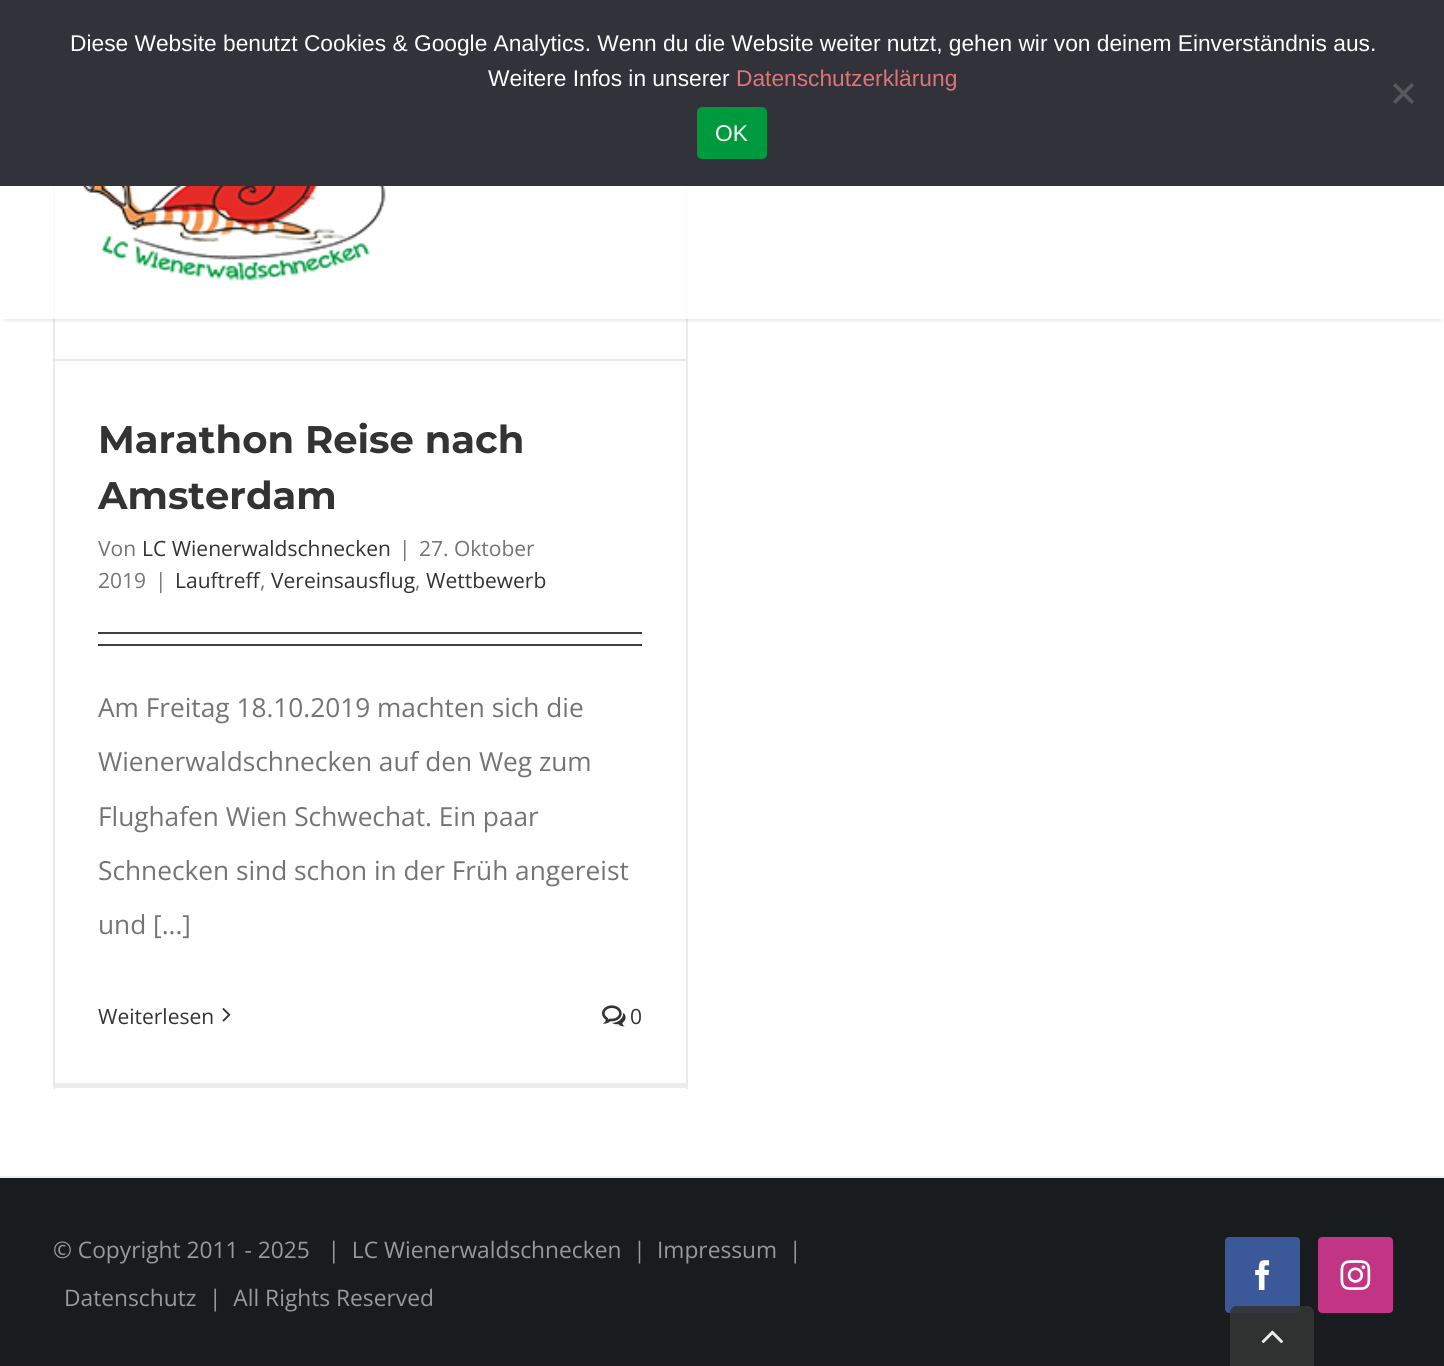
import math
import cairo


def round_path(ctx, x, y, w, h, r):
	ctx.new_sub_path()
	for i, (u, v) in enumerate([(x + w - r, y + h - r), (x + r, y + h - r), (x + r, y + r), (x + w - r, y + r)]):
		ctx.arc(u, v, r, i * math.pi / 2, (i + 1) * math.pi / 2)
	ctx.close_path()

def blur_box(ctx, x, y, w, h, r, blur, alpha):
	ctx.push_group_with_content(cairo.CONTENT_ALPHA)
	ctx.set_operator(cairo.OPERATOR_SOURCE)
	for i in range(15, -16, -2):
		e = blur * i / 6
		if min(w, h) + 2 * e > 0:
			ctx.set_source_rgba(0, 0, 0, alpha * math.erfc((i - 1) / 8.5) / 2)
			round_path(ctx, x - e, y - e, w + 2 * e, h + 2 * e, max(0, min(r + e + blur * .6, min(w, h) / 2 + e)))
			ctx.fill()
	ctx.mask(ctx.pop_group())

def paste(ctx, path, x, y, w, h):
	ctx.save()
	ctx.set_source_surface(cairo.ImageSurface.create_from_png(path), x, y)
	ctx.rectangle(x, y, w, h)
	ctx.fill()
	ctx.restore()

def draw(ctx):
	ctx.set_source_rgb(0.929, 0.929, 0.929)
	ctx.paint()
	ctx.set_source_rgb(1, 1, 1)
	ctx.rectangle(0, 186, 1444, 990)
	ctx.fill()
	ctx.set_source_rgb(0.922, 0.918, 0.918)
	ctx.rectangle(686, 186, 2, 903)
	ctx.rectangle(53, 1083, 635, 5)
	ctx.rectangle(53, 186, 2, 903)
	ctx.fill()
	ctx.save()
	ctx.set_fill_rule(cairo.FILL_RULE_EVEN_ODD)
	ctx.new_path()
	ctx.move_to(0, 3)
	ctx.line_to(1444, 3)
	ctx.line_to(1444, 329)
	ctx.line_to(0, 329)
	ctx.close_path()
	ctx.move_to(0, 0)
	ctx.line_to(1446, 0)
	ctx.line_to(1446, 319)
	ctx.line_to(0, 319)
	ctx.close_path()
	ctx.clip()
	ctx.set_source_rgb(0, 0, 0)
	blur_box(ctx, 5, 12, 1435, 308, 0, 2.5, 0.12)
	ctx.restore()
	ctx.set_source_rgb(0.196, 0.196, 0.227)
	ctx.rectangle(0, 0, 1444, 186)
	ctx.fill()
	ctx.select_font_face('Liberation Sans')
	ctx.set_font_size(22.75)
	ctx.set_source_rgb(1, 1, 1)
	ctx.move_to(70, 51)
	ctx.show_text('Diese Website benutzt Cookies & Google Analytics. Wenn du die Website weiter nutzt, gehen wir von deinem Einverständnis aus.')
	ctx.move_to(488, 86)
	ctx.show_text('Weitere Infos in unserer')
	ctx.set_source_rgb(0.875, 0.459, 0.459)
	ctx.move_to(736, 86)
	ctx.show_text('Datenschutzerklärung')
	ctx.set_source_rgb(0.349, 0.349, 0.365)
	ctx.new_path()
	ctx.move_to(1411.5, 83)
	ctx.line_to(1414, 85.5)
	ctx.line_to(1395.5, 104)
	ctx.line_to(1393, 101.5)
	ctx.close_path()
	ctx.fill()
	ctx.new_path()
	ctx.move_to(1393, 85.5)
	ctx.line_to(1395.5, 83)
	ctx.line_to(1414, 101.5)
	ctx.line_to(1411.5, 104)
	ctx.close_path()
	ctx.fill()
	ctx.set_source_rgb(0, 0.604, 0.243)
	round_path(ctx, 697, 107, 70, 52, 5)
	ctx.fill()
	ctx.set_source_rgb(1, 1, 1)
	ctx.move_to(715, 141)
	ctx.show_text('OK')
	ctx.set_source_rgba(1, 1, 1, 0.85)
	ctx.rectangle(4, 186, 1437, 133)
	ctx.fill()
	paste(ctx, 'media/1.png', 82, 186, 304, 95)
	ctx.set_source_rgb(0.922, 0.918, 0.918)
	ctx.rectangle(54, 359, 632, 2)
	ctx.fill()
	ctx.select_font_face('Montserrat', cairo.FONT_SLANT_NORMAL, cairo.FONT_WEIGHT_BOLD)
	ctx.set_font_size(38.5)
	ctx.set_source_rgb(0.2, 0.2, 0.2)
	ctx.move_to(98, 453)
	ctx.show_text('Marathon Reise nach')
	ctx.move_to(98, 509)
	ctx.show_text('Amsterdam')
	ctx.select_font_face('Open Sans')
	ctx.set_font_size(21)
	ctx.set_source_rgb(0.455, 0.455, 0.455)
	ctx.move_to(98, 556)
	ctx.show_text('Von')
	ctx.set_source_rgb(0.2, 0.2, 0.2)
	ctx.move_to(142, 556)
	ctx.show_text('LC Wienerwaldschnecken')
	ctx.set_source_rgb(0.455, 0.455, 0.455)
	for x, y, s in [
		(399, 556, '|'),
		(419, 556, '27. Oktober'),
		(98, 588, '2019'),
		(155, 588, '|'),
	]:
		ctx.move_to(x, y)
		ctx.show_text(s)
	ctx.set_source_rgb(0.2, 0.2, 0.2)
	ctx.move_to(175, 588)
	ctx.show_text('Lauftreff')
	ctx.set_source_rgb(0.455, 0.455, 0.455)
	ctx.move_to(260, 588)
	ctx.show_text(',')
	ctx.set_source_rgb(0.2, 0.2, 0.2)
	ctx.move_to(271, 588)
	ctx.show_text('Vereinsausflug')
	ctx.set_source_rgb(0.455, 0.455, 0.455)
	ctx.move_to(415, 588)
	ctx.show_text(',')
	ctx.set_source_rgb(0.2, 0.2, 0.2)
	ctx.move_to(426, 588)
	ctx.show_text('Wettbewerb')
	ctx.set_source_rgb(0.243, 0.243, 0.243)
	ctx.rectangle(98, 632, 544, 2)
	ctx.fill()
	ctx.rectangle(98, 644, 544, 2)
	ctx.fill()
	ctx.set_font_size(26.25)
	ctx.set_source_rgb(0.455, 0.455, 0.455)
	for x, y, s in [
		(98, 717, 'Am Freitag 18.10.2019 machten sich die'),
		(98, 771, 'Wienerwaldschnecken auf den Weg zum'),
		(98, 826, 'Flughafen Wien Schwechat. Ein paar'),
		(98, 880, 'Schnecken sind schon in der Früh angereist'),
		(98, 934, 'und [...]'),
	]:
		ctx.move_to(x, y)
		ctx.show_text(s)
	ctx.set_font_size(21)
	ctx.set_source_rgb(0.2, 0.2, 0.2)
	ctx.move_to(98, 1024)
	ctx.show_text('Weiterlesen')
	paste(ctx, 'media/2.png', 222, 1008, 9, 14)
	paste(ctx, 'media/3.png', 602, 1005, 24, 22)
	ctx.move_to(630, 1024)
	ctx.show_text('0')
	ctx.set_source_rgb(0.098, 0.11, 0.118)
	ctx.rectangle(0, 1178, 1444, 188)
	ctx.fill()
	ctx.set_font_size(22.75)
	ctx.set_source_rgb(0.6, 0.6, 0.6)
	for x, y, s in [
		(53, 1258, '© Copyright 2011 - 2025   |  LC Wienerwaldschnecken  |'),
		(657, 1258, 'Impressum'),
		(789, 1258, '|'),
		(64, 1306, 'Datenschutz'),
		(209, 1306, '|  All Rights Reserved'),
	]:
		ctx.move_to(x, y)
		ctx.show_text(s)
	ctx.set_source_rgb(0.231, 0.349, 0.596)
	round_path(ctx, 1226, 1238, 73, 74, 3)
	ctx.fill_preserve()
	ctx.stroke()
	paste(ctx, 'media/4.png', 1255, 1260, 15, 30)
	ctx.set_source_rgb(0.757, 0.208, 0.518)
	round_path(ctx, 1319, 1238, 73, 74, 3)
	ctx.fill_preserve()
	ctx.stroke()
	paste(ctx, 'media/5.png', 1340, 1260, 31, 30)
	ctx.set_source_rgba(0.2, 0.2, 0.2, 0.9)
	ctx.new_path()
	ctx.move_to(1237, 1306)
	ctx.line_to(1307, 1306)
	ctx.curve_to(1311, 1306, 1314, 1309, 1314, 1313)
	ctx.line_to(1314, 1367)
	ctx.line_to(1230, 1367)
	ctx.line_to(1230, 1313)
	ctx.curve_to(1230, 1309, 1233, 1306, 1237, 1306)
	ctx.close_path()
	ctx.fill()
	paste(ctx, 'media/6.png', 1261, 1330, 22, 14)


surface = cairo.ImageSurface(cairo.FORMAT_RGB24, 1444, 1366)
ctx = cairo.Context(surface)
options = cairo.FontOptions()
options.set_hint_metrics(cairo.HINT_METRICS_OFF)
options.set_hint_style(cairo.HINT_STYLE_NONE)
ctx.set_font_options(options)
ctx.set_miter_limit(4)
draw(ctx)
surface.write_to_png('image.png')
